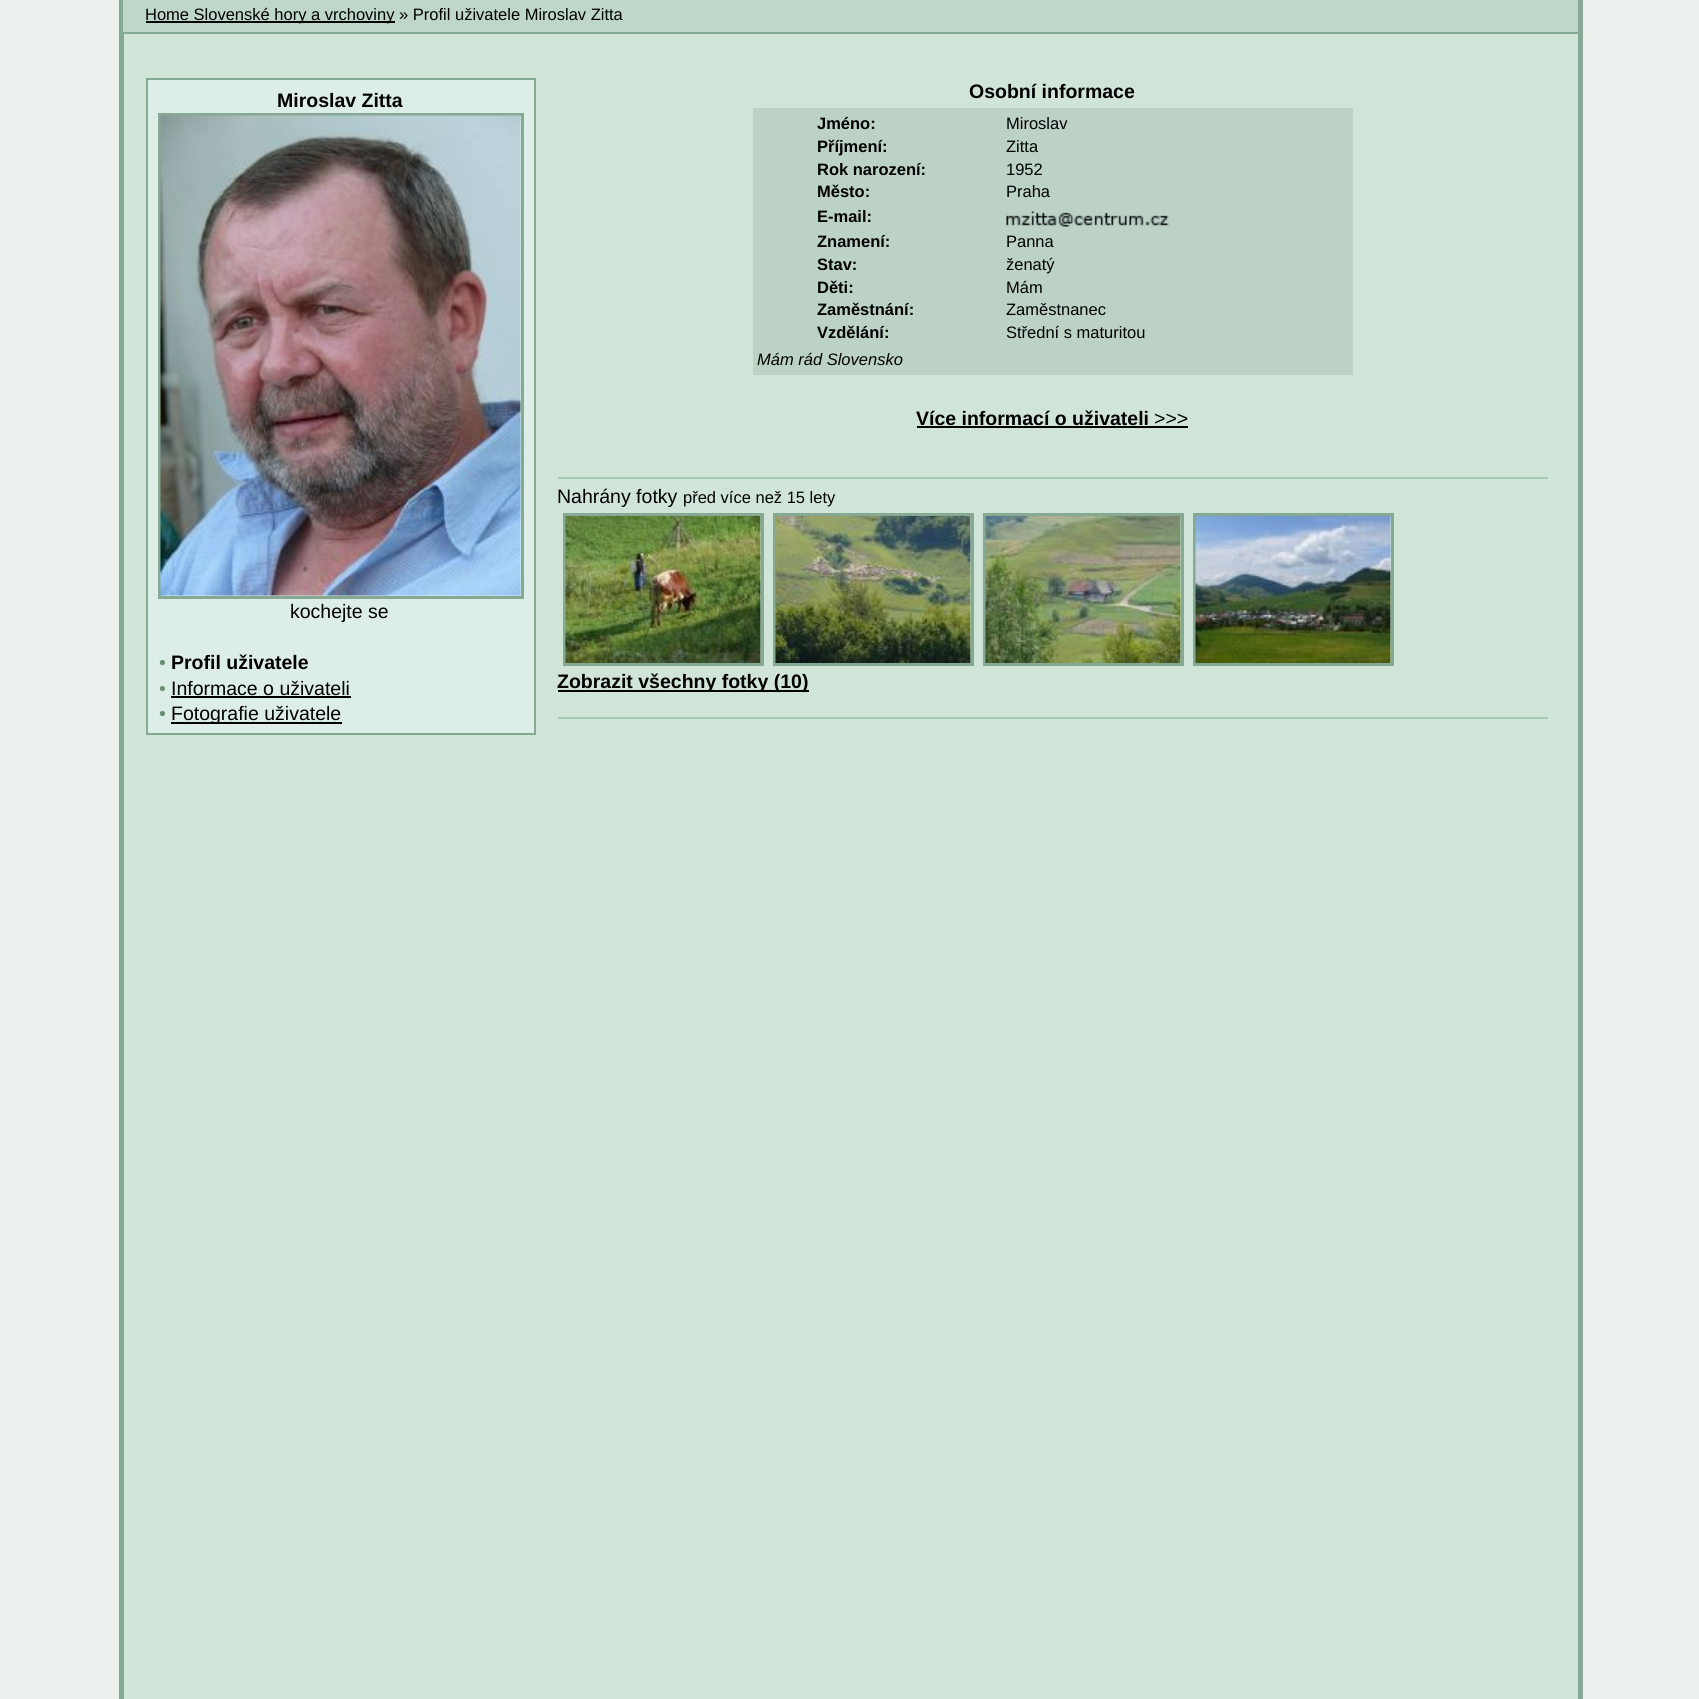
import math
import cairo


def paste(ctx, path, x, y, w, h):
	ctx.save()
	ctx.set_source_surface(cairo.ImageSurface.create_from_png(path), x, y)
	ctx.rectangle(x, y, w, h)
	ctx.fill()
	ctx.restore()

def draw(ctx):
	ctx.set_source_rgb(0.929, 0.945, 0.933)
	ctx.paint()
	ctx.set_source_rgb(0.82, 0.894, 0.847)
	ctx.rectangle(124, 34, 1454, 1665)
	ctx.fill()
	ctx.set_source_rgb(0.522, 0.663, 0.576)
	ctx.rectangle(1578, 0, 5, 1699)
	ctx.rectangle(119, 0, 5, 1699)
	ctx.fill()
	ctx.set_source_rgb(0.749, 0.843, 0.784)
	ctx.rectangle(123, 0, 1455, 32)
	ctx.fill()
	ctx.set_source_rgb(0.522, 0.663, 0.576)
	ctx.rectangle(123, 32, 1455, 2)
	ctx.fill()
	ctx.set_source_rgb(0, 0, 0)
	ctx.rectangle(146, 21, 249, 2)
	ctx.fill()
	ctx.select_font_face('Liberation Sans')
	ctx.set_font_size(16.5)
	ctx.move_to(145, 20)
	ctx.show_text('Home Slovenské hory a vrchoviny » Profil uživatele Miroslav Zitta')
	ctx.set_source_rgb(0.867, 0.933, 0.91)
	ctx.rectangle(147, 79, 388, 655)
	ctx.fill_preserve()
	ctx.set_source_rgb(0.522, 0.663, 0.576)
	ctx.stroke()
	ctx.select_font_face('Liberation Sans', cairo.FONT_SLANT_NORMAL, cairo.FONT_WEIGHT_BOLD)
	ctx.set_font_size(19.5)
	ctx.set_source_rgb(0, 0, 0)
	ctx.move_to(277, 107)
	ctx.show_text('Miroslav Zitta')
	ctx.rectangle(159.5, 114.5, 363, 483)
	ctx.set_source_rgb(0.522, 0.663, 0.576)
	ctx.set_line_width(3)
	ctx.stroke()
	paste(ctx, 'media/1.png', 160, 115, 361, 481)
	ctx.select_font_face('Liberation Sans')
	ctx.set_source_rgb(0, 0, 0)
	ctx.move_to(290, 618)
	ctx.show_text('kochejte se')
	ctx.set_source_rgb(0.404, 0.565, 0.439)
	ctx.move_to(159, 669)
	ctx.show_text('•')
	ctx.select_font_face('Liberation Sans', cairo.FONT_SLANT_NORMAL, cairo.FONT_WEIGHT_BOLD)
	ctx.set_source_rgb(0, 0, 0)
	ctx.move_to(171, 669)
	ctx.show_text('Profil uživatele')
	ctx.select_font_face('Liberation Sans')
	ctx.set_source_rgb(0.404, 0.565, 0.439)
	ctx.move_to(159, 695)
	ctx.show_text('•')
	ctx.set_source_rgb(0, 0, 0)
	ctx.move_to(171, 695)
	ctx.show_text('Informace o uživateli')
	ctx.rectangle(171, 696, 180, 2)
	ctx.fill()
	ctx.set_source_rgb(0.404, 0.565, 0.439)
	ctx.move_to(159, 720)
	ctx.show_text('•')
	ctx.set_source_rgb(0, 0, 0)
	ctx.rectangle(171, 722, 171, 2)
	ctx.fill()
	ctx.move_to(171, 720)
	ctx.show_text('Fotografie uživatele')
	ctx.select_font_face('Liberation Sans', cairo.FONT_SLANT_NORMAL, cairo.FONT_WEIGHT_BOLD)
	ctx.move_to(969, 98)
	ctx.show_text('Osobní informace')
	ctx.set_source_rgb(0.733, 0.824, 0.773)
	ctx.rectangle(753, 108, 600, 267)
	ctx.fill()
	ctx.set_font_size(16.5)
	ctx.set_source_rgb(0, 0, 0)
	ctx.move_to(817, 129)
	ctx.show_text('Jméno:')
	ctx.select_font_face('Liberation Sans')
	ctx.move_to(1006, 129)
	ctx.show_text('Miroslav')
	ctx.select_font_face('Liberation Sans', cairo.FONT_SLANT_NORMAL, cairo.FONT_WEIGHT_BOLD)
	ctx.move_to(817, 152)
	ctx.show_text('Příjmení:')
	ctx.select_font_face('Liberation Sans')
	ctx.move_to(1006, 152)
	ctx.show_text('Zitta')
	ctx.select_font_face('Liberation Sans', cairo.FONT_SLANT_NORMAL, cairo.FONT_WEIGHT_BOLD)
	ctx.move_to(817, 175)
	ctx.show_text('Rok narození:')
	ctx.select_font_face('Liberation Sans')
	ctx.move_to(1006, 175)
	ctx.show_text('1952')
	ctx.select_font_face('Liberation Sans', cairo.FONT_SLANT_NORMAL, cairo.FONT_WEIGHT_BOLD)
	ctx.move_to(817, 197)
	ctx.show_text('Město:')
	ctx.select_font_face('Liberation Sans')
	ctx.move_to(1006, 197)
	ctx.show_text('Praha')
	ctx.select_font_face('Liberation Sans', cairo.FONT_SLANT_NORMAL, cairo.FONT_WEIGHT_BOLD)
	ctx.move_to(817, 222)
	ctx.show_text('E-mail:')
	paste(ctx, 'media/2.png', 1006, 211, 163, 16)
	ctx.move_to(817, 247)
	ctx.show_text('Znamení:')
	ctx.select_font_face('Liberation Sans')
	ctx.move_to(1006, 247)
	ctx.show_text('Panna')
	ctx.select_font_face('Liberation Sans', cairo.FONT_SLANT_NORMAL, cairo.FONT_WEIGHT_BOLD)
	ctx.move_to(817, 270)
	ctx.show_text('Stav:')
	ctx.select_font_face('Liberation Sans')
	ctx.move_to(1006, 270)
	ctx.show_text('ženatý')
	ctx.select_font_face('Liberation Sans', cairo.FONT_SLANT_NORMAL, cairo.FONT_WEIGHT_BOLD)
	ctx.move_to(817, 293)
	ctx.show_text('Děti:')
	ctx.select_font_face('Liberation Sans')
	ctx.move_to(1006, 293)
	ctx.show_text('Mám')
	ctx.select_font_face('Liberation Sans', cairo.FONT_SLANT_NORMAL, cairo.FONT_WEIGHT_BOLD)
	ctx.move_to(817, 315)
	ctx.show_text('Zaměstnání:')
	ctx.select_font_face('Liberation Sans')
	ctx.move_to(1006, 315)
	ctx.show_text('Zaměstnanec')
	ctx.select_font_face('Liberation Sans', cairo.FONT_SLANT_NORMAL, cairo.FONT_WEIGHT_BOLD)
	ctx.move_to(817, 338)
	ctx.show_text('Vzdělání:')
	ctx.select_font_face('Liberation Sans')
	ctx.move_to(1006, 338)
	ctx.show_text('Střední s maturitou')
	ctx.select_font_face('Liberation Sans', cairo.FONT_SLANT_ITALIC)
	ctx.move_to(757, 365)
	ctx.show_text('Mám rád Slovensko')
	ctx.select_font_face('Liberation Sans', cairo.FONT_SLANT_NORMAL, cairo.FONT_WEIGHT_BOLD)
	ctx.set_font_size(19.5)
	ctx.move_to(916, 425)
	ctx.show_text('Více informací o uživateli')
	ctx.select_font_face('Liberation Sans')
	ctx.move_to(1154, 425)
	ctx.show_text('>>>')
	ctx.rectangle(917, 426, 271, 2)
	ctx.fill()
	ctx.set_source_rgb(0.635, 0.788, 0.694)
	ctx.rectangle(558, 477, 990, 2)
	ctx.fill()
	ctx.set_source_rgb(0, 0, 0)
	ctx.move_to(557, 503)
	ctx.show_text('Nahrány fotky')
	ctx.set_font_size(16.5)
	ctx.move_to(683, 503)
	ctx.show_text('před více než 15 lety')
	ctx.rectangle(564.5, 514.5, 198, 150)
	ctx.set_source_rgb(0.522, 0.663, 0.576)
	ctx.stroke()
	ctx.rectangle(774.5, 514.5, 198, 150)
	ctx.stroke()
	ctx.rectangle(984.5, 514.5, 198, 150)
	ctx.stroke()
	ctx.rectangle(1194.5, 514.5, 198, 150)
	ctx.stroke()
	paste(ctx, 'media/3.png', 565, 516, 196, 147)
	paste(ctx, 'media/4.png', 775, 516, 196, 147)
	paste(ctx, 'media/5.png', 985, 516, 196, 147)
	paste(ctx, 'media/6.png', 1195, 516, 196, 147)
	ctx.set_source_rgb(0, 0, 0)
	ctx.rectangle(558, 690, 251, 2)
	ctx.fill()
	ctx.select_font_face('Liberation Sans', cairo.FONT_SLANT_NORMAL, cairo.FONT_WEIGHT_BOLD)
	ctx.set_font_size(19.5)
	ctx.move_to(557, 688)
	ctx.show_text('Zobrazit všechny fotky (10)')
	ctx.set_source_rgb(0.635, 0.788, 0.694)
	ctx.rectangle(558, 717, 990, 2)
	ctx.fill()


surface = cairo.ImageSurface(cairo.FORMAT_RGB24, 1699, 1699)
ctx = cairo.Context(surface)
options = cairo.FontOptions()
options.set_hint_metrics(cairo.HINT_METRICS_OFF)
options.set_hint_style(cairo.HINT_STYLE_NONE)
ctx.set_font_options(options)
ctx.set_miter_limit(4)
draw(ctx)
surface.write_to_png('image.png')
